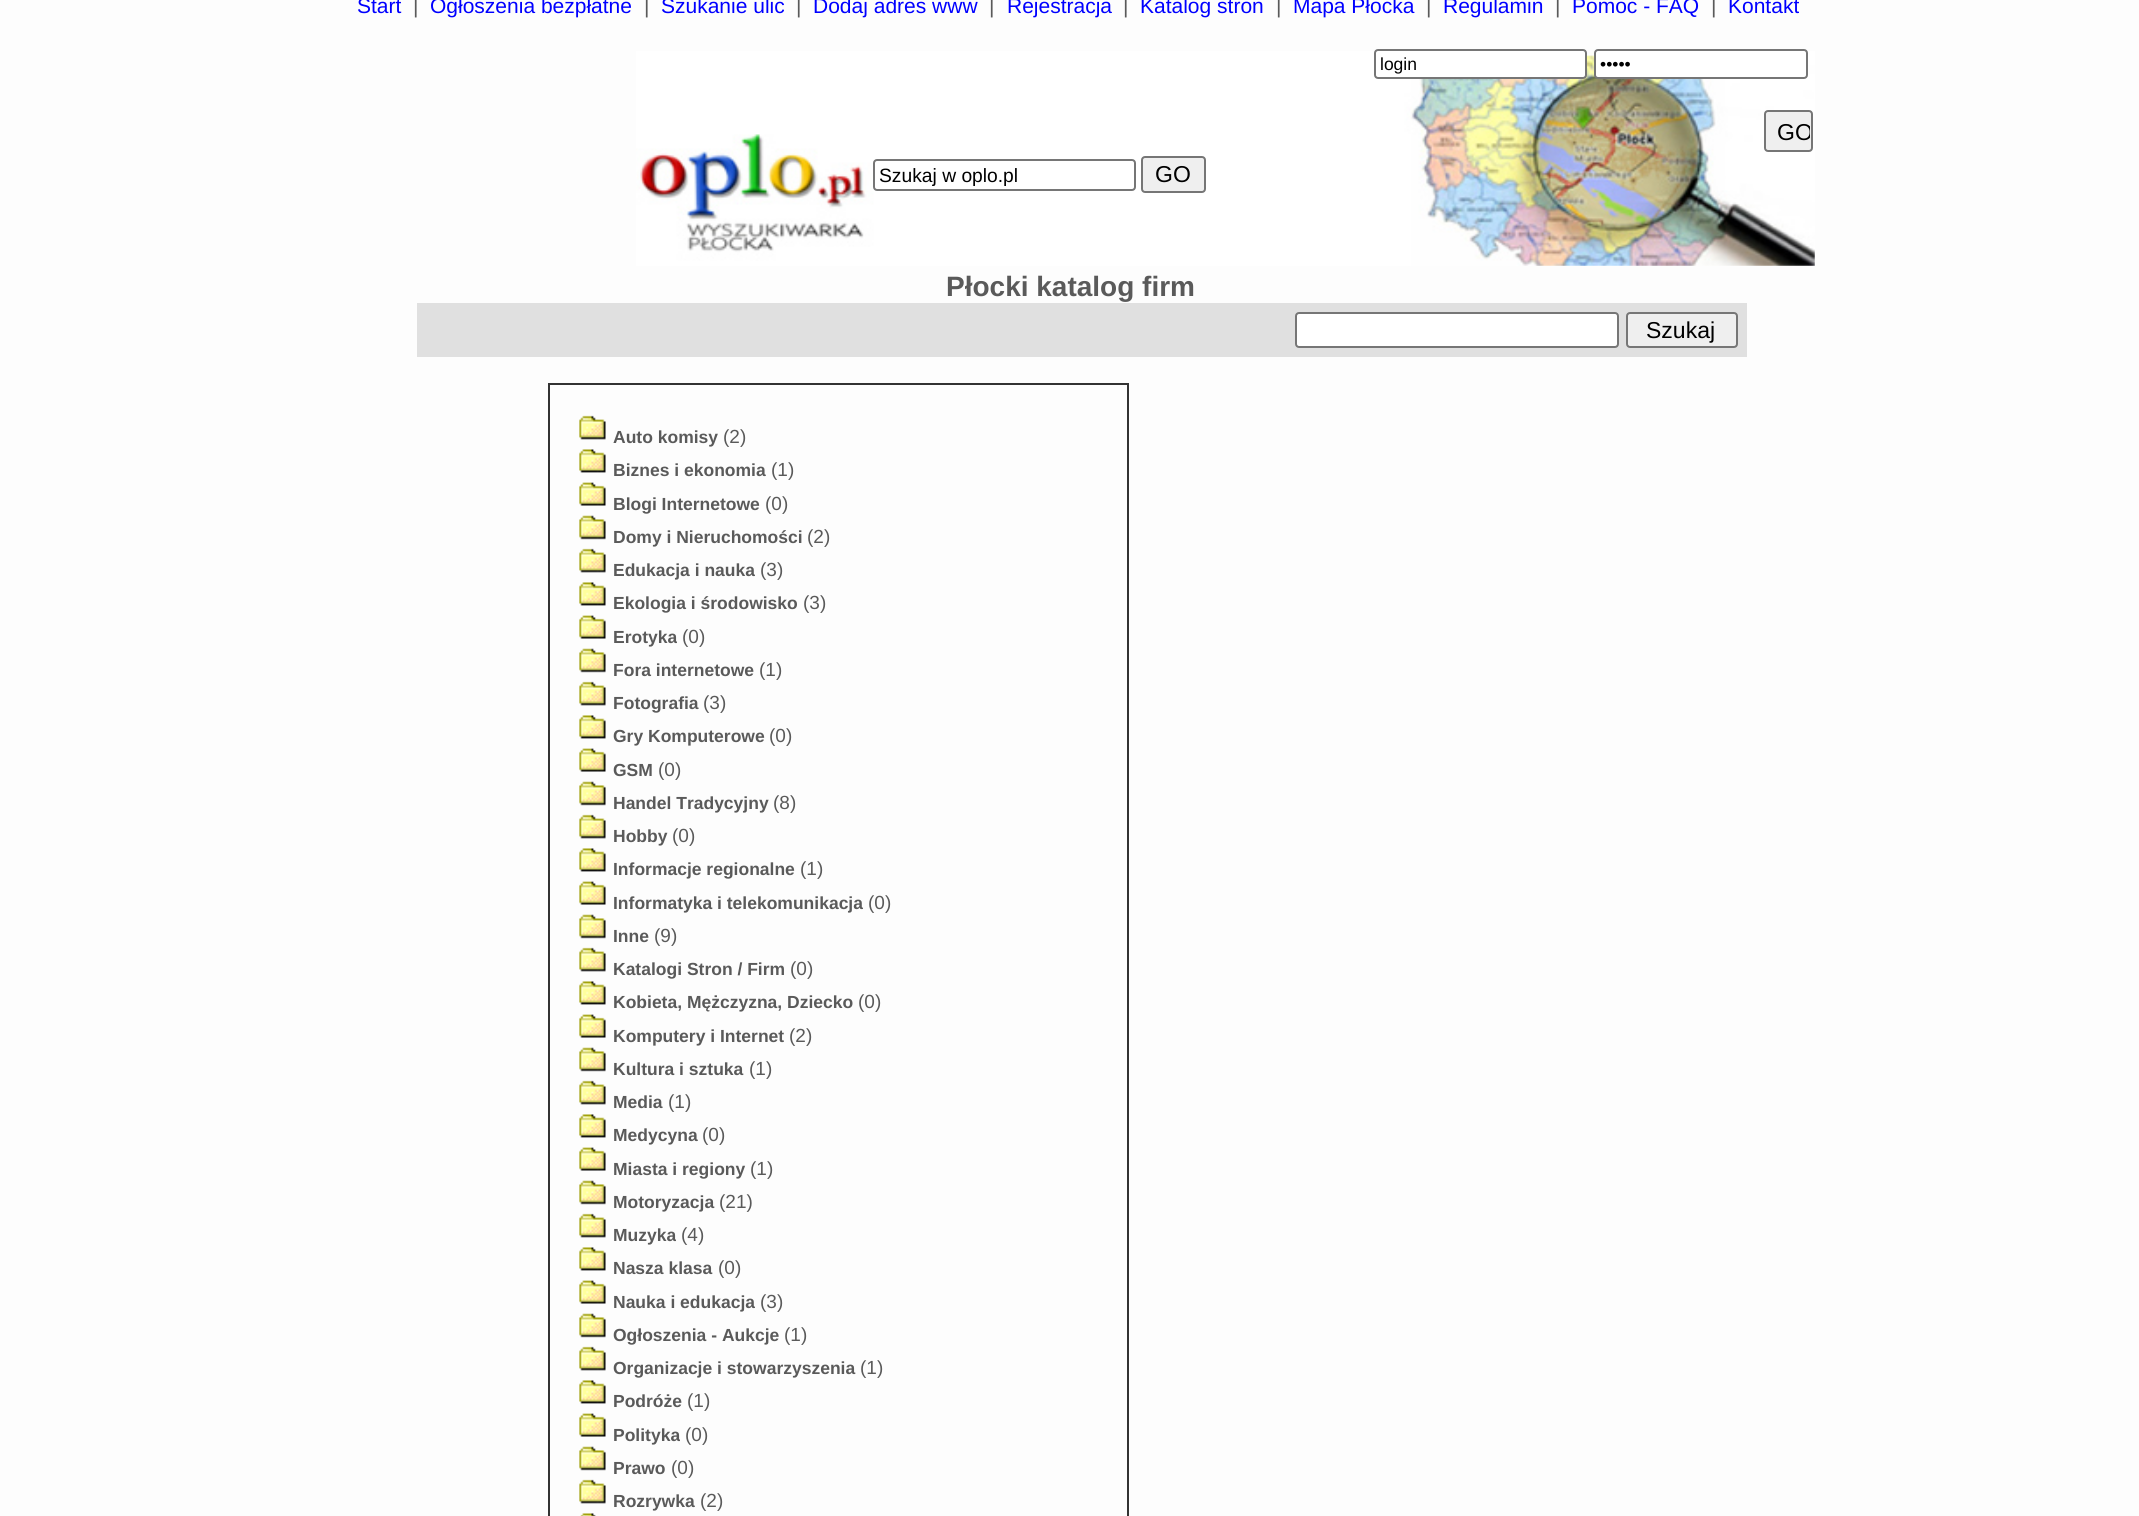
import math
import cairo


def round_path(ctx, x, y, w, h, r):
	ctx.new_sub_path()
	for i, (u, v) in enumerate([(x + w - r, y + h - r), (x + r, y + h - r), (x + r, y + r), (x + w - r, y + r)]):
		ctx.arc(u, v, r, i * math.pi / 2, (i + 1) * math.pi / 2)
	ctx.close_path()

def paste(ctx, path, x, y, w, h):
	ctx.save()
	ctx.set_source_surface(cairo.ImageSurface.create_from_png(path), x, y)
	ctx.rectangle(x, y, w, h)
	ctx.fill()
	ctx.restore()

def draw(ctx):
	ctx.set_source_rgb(0.992, 0.992, 0.992)
	ctx.paint()
	ctx.select_font_face('Liberation Sans')
	ctx.set_font_size(21)
	ctx.set_source_rgb(0, 0, 1)
	ctx.move_to(357, 13)
	ctx.show_text('Start')
	ctx.set_source_rgb(0.353, 0.353, 0.353)
	ctx.move_to(413, 13)
	ctx.show_text('|')
	ctx.set_source_rgb(0, 0, 1)
	ctx.move_to(430, 13)
	ctx.show_text('Ogłoszenia bezpłatne')
	ctx.set_source_rgb(0.353, 0.353, 0.353)
	ctx.move_to(644, 13)
	ctx.show_text('|')
	ctx.set_source_rgb(0, 0, 1)
	ctx.move_to(661, 13)
	ctx.show_text('Szukanie ulic')
	ctx.set_source_rgb(0.353, 0.353, 0.353)
	ctx.move_to(796, 13)
	ctx.show_text('|')
	ctx.set_source_rgb(0, 0, 1)
	ctx.move_to(813, 13)
	ctx.show_text('Dodaj adres www')
	ctx.set_source_rgb(0.353, 0.353, 0.353)
	ctx.move_to(989, 13)
	ctx.show_text('|')
	ctx.set_source_rgb(0, 0, 1)
	ctx.move_to(1007, 13)
	ctx.show_text('Rejestracja')
	ctx.set_source_rgb(0.353, 0.353, 0.353)
	ctx.move_to(1123, 13)
	ctx.show_text('|')
	ctx.set_source_rgb(0, 0, 1)
	ctx.move_to(1140, 13)
	ctx.show_text('Katalog stron')
	ctx.set_source_rgb(0.353, 0.353, 0.353)
	ctx.move_to(1276, 13)
	ctx.show_text('|')
	ctx.set_source_rgb(0, 0, 1)
	ctx.move_to(1293, 13)
	ctx.show_text('Mapa Płocka')
	ctx.set_source_rgb(0.353, 0.353, 0.353)
	ctx.move_to(1426, 13)
	ctx.show_text('|')
	ctx.set_source_rgb(0, 0, 1)
	ctx.move_to(1443, 13)
	ctx.show_text('Regulamin')
	ctx.set_source_rgb(0.353, 0.353, 0.353)
	ctx.move_to(1555, 13)
	ctx.show_text('|')
	ctx.set_source_rgb(0, 0, 1)
	ctx.move_to(1572, 13)
	ctx.show_text('Pomoc - FAQ')
	ctx.set_source_rgb(0.353, 0.353, 0.353)
	ctx.move_to(1711, 13)
	ctx.show_text('|')
	ctx.set_source_rgb(0, 0, 1)
	ctx.move_to(1728, 13)
	ctx.show_text('Kontakt')
	paste(ctx, 'media/1.png', 636, 51, 1179, 215)
	ctx.set_source_rgb(1, 1, 1)
	round_path(ctx, 1375, 50, 211, 28, 3)
	ctx.fill_preserve()
	ctx.set_source_rgb(0.463, 0.463, 0.463)
	ctx.stroke()
	ctx.set_font_size(17.5)
	ctx.set_source_rgb(0, 0, 0)
	ctx.move_to(1380, 70)
	ctx.show_text('login')
	ctx.set_source_rgb(1, 1, 1)
	round_path(ctx, 1595, 50, 212, 28, 3)
	ctx.fill_preserve()
	ctx.set_source_rgb(0.463, 0.463, 0.463)
	ctx.stroke()
	ctx.set_source_rgb(0, 0, 0)
	ctx.move_to(1600, 70)
	ctx.show_text('•••••')
	ctx.set_source_rgb(0.937, 0.937, 0.937)
	round_path(ctx, 1765, 111, 47, 40, 3)
	ctx.fill_preserve()
	ctx.set_source_rgb(0.463, 0.463, 0.463)
	ctx.stroke()
	ctx.save()
	ctx.rectangle(1768, 114, 42, 35)
	ctx.clip()
	ctx.set_font_size(23)
	ctx.set_source_rgb(0, 0, 0)
	ctx.move_to(1777, 140)
	ctx.show_text('GO')
	ctx.restore()
	round_path(ctx, 874, 160, 261, 30, 3)
	ctx.stroke()
	ctx.set_font_size(19.25)
	ctx.set_source_rgb(0, 0, 0)
	ctx.move_to(879, 182)
	ctx.show_text('Szukaj w oplo.pl')
	ctx.set_source_rgb(0.937, 0.937, 0.937)
	round_path(ctx, 1142, 157, 63, 35, 3)
	ctx.fill_preserve()
	ctx.set_source_rgb(0.463, 0.463, 0.463)
	ctx.stroke()
	ctx.set_font_size(23)
	ctx.set_source_rgb(0, 0, 0)
	ctx.move_to(1155, 182)
	ctx.show_text('GO')
	ctx.select_font_face('Liberation Sans', cairo.FONT_SLANT_NORMAL, cairo.FONT_WEIGHT_BOLD)
	ctx.set_font_size(28)
	ctx.set_source_rgb(0.353, 0.353, 0.353)
	ctx.move_to(946, 296)
	ctx.show_text('Płocki katalog firm')
	ctx.set_source_rgb(0.878, 0.878, 0.878)
	ctx.rectangle(417, 303, 1330, 54)
	ctx.fill()
	ctx.set_source_rgb(1, 1, 1)
	round_path(ctx, 1296, 313, 322, 34, 3)
	ctx.fill_preserve()
	ctx.set_source_rgb(0.463, 0.463, 0.463)
	ctx.stroke()
	ctx.set_source_rgb(0.937, 0.937, 0.937)
	round_path(ctx, 1627, 313, 110, 34, 3)
	ctx.fill_preserve()
	ctx.set_source_rgb(0.463, 0.463, 0.463)
	ctx.stroke()
	ctx.select_font_face('Liberation Sans')
	ctx.set_font_size(23)
	ctx.set_source_rgb(0, 0, 0)
	ctx.move_to(1646, 338)
	ctx.show_text('Szukaj')
	ctx.rectangle(549, 384, 579, 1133)
	ctx.set_source_rgb(0.2, 0.2, 0.2)
	ctx.stroke()
	paste(ctx, 'media/2.png', 579, 415, 27, 25)
	ctx.select_font_face('Liberation Sans', cairo.FONT_SLANT_NORMAL, cairo.FONT_WEIGHT_BOLD)
	ctx.set_font_size(17.5)
	ctx.set_source_rgb(0.353, 0.353, 0.353)
	ctx.move_to(613, 443)
	ctx.show_text('Auto komisy')
	ctx.select_font_face('Liberation Sans')
	ctx.set_font_size(19)
	ctx.move_to(723, 443)
	ctx.show_text('(2)')
	paste(ctx, 'media/3.png', 579, 449, 27, 24)
	ctx.select_font_face('Liberation Sans', cairo.FONT_SLANT_NORMAL, cairo.FONT_WEIGHT_BOLD)
	ctx.set_font_size(17.5)
	ctx.move_to(613, 476)
	ctx.show_text('Biznes i ekonomia')
	ctx.select_font_face('Liberation Sans')
	ctx.set_font_size(19)
	ctx.move_to(771, 476)
	ctx.show_text('(1)')
	paste(ctx, 'media/4.png', 579, 482, 27, 24)
	ctx.select_font_face('Liberation Sans', cairo.FONT_SLANT_NORMAL, cairo.FONT_WEIGHT_BOLD)
	ctx.set_font_size(17.5)
	ctx.move_to(613, 510)
	ctx.show_text('Blogi Internetowe')
	ctx.select_font_face('Liberation Sans')
	ctx.set_font_size(19)
	ctx.move_to(765, 510)
	ctx.show_text('(0)')
	paste(ctx, 'media/5.png', 579, 515, 27, 25)
	ctx.select_font_face('Liberation Sans', cairo.FONT_SLANT_NORMAL, cairo.FONT_WEIGHT_BOLD)
	ctx.set_font_size(17.5)
	ctx.move_to(613, 543)
	ctx.show_text('Domy i Nieruchomości')
	ctx.select_font_face('Liberation Sans')
	ctx.set_font_size(19)
	ctx.move_to(807, 543)
	ctx.show_text('(2)')
	paste(ctx, 'media/2.png', 579, 548, 27, 25)
	ctx.select_font_face('Liberation Sans', cairo.FONT_SLANT_NORMAL, cairo.FONT_WEIGHT_BOLD)
	ctx.set_font_size(17.5)
	ctx.move_to(613, 576)
	ctx.show_text('Edukacja i nauka')
	ctx.select_font_face('Liberation Sans')
	ctx.set_font_size(19)
	ctx.move_to(760, 576)
	ctx.show_text('(3)')
	paste(ctx, 'media/3.png', 579, 582, 27, 24)
	ctx.select_font_face('Liberation Sans', cairo.FONT_SLANT_NORMAL, cairo.FONT_WEIGHT_BOLD)
	ctx.set_font_size(17.5)
	ctx.move_to(613, 609)
	ctx.show_text('Ekologia i środowisko')
	ctx.select_font_face('Liberation Sans')
	ctx.set_font_size(19)
	ctx.move_to(803, 609)
	ctx.show_text('(3)')
	paste(ctx, 'media/4.png', 579, 615, 27, 24)
	ctx.select_font_face('Liberation Sans', cairo.FONT_SLANT_NORMAL, cairo.FONT_WEIGHT_BOLD)
	ctx.set_font_size(17.5)
	ctx.move_to(613, 643)
	ctx.show_text('Erotyka')
	ctx.select_font_face('Liberation Sans')
	ctx.set_font_size(19)
	ctx.move_to(682, 643)
	ctx.show_text('(0)')
	paste(ctx, 'media/5.png', 579, 648, 27, 25)
	ctx.select_font_face('Liberation Sans', cairo.FONT_SLANT_NORMAL, cairo.FONT_WEIGHT_BOLD)
	ctx.set_font_size(17.5)
	ctx.move_to(613, 676)
	ctx.show_text('Fora internetowe')
	ctx.select_font_face('Liberation Sans')
	ctx.set_font_size(19)
	ctx.move_to(759, 676)
	ctx.show_text('(1)')
	paste(ctx, 'media/2.png', 579, 681, 27, 25)
	ctx.select_font_face('Liberation Sans', cairo.FONT_SLANT_NORMAL, cairo.FONT_WEIGHT_BOLD)
	ctx.set_font_size(17.5)
	ctx.move_to(613, 709)
	ctx.show_text('Fotografia')
	ctx.select_font_face('Liberation Sans')
	ctx.set_font_size(19)
	ctx.move_to(703, 709)
	ctx.show_text('(3)')
	paste(ctx, 'media/3.png', 579, 715, 27, 24)
	ctx.select_font_face('Liberation Sans', cairo.FONT_SLANT_NORMAL, cairo.FONT_WEIGHT_BOLD)
	ctx.set_font_size(17.5)
	ctx.move_to(613, 742)
	ctx.show_text('Gry Komputerowe')
	ctx.select_font_face('Liberation Sans')
	ctx.set_font_size(19)
	ctx.move_to(769, 742)
	ctx.show_text('(0)')
	paste(ctx, 'media/4.png', 579, 748, 27, 24)
	ctx.select_font_face('Liberation Sans', cairo.FONT_SLANT_NORMAL, cairo.FONT_WEIGHT_BOLD)
	ctx.set_font_size(17.5)
	ctx.move_to(613, 776)
	ctx.show_text('GSM')
	ctx.select_font_face('Liberation Sans')
	ctx.set_font_size(19)
	ctx.move_to(658, 776)
	ctx.show_text('(0)')
	paste(ctx, 'media/5.png', 579, 781, 27, 25)
	ctx.select_font_face('Liberation Sans', cairo.FONT_SLANT_NORMAL, cairo.FONT_WEIGHT_BOLD)
	ctx.set_font_size(17.5)
	ctx.move_to(613, 809)
	ctx.show_text('Handel Tradycyjny')
	ctx.select_font_face('Liberation Sans')
	ctx.set_font_size(19)
	ctx.move_to(773, 809)
	ctx.show_text('(8)')
	paste(ctx, 'media/2.png', 579, 814, 27, 25)
	ctx.select_font_face('Liberation Sans', cairo.FONT_SLANT_NORMAL, cairo.FONT_WEIGHT_BOLD)
	ctx.set_font_size(17.5)
	ctx.move_to(613, 842)
	ctx.show_text('Hobby')
	ctx.select_font_face('Liberation Sans')
	ctx.set_font_size(19)
	ctx.move_to(672, 842)
	ctx.show_text('(0)')
	paste(ctx, 'media/3.png', 579, 848, 27, 24)
	ctx.select_font_face('Liberation Sans', cairo.FONT_SLANT_NORMAL, cairo.FONT_WEIGHT_BOLD)
	ctx.set_font_size(17.5)
	ctx.move_to(613, 875)
	ctx.show_text('Informacje regionalne')
	ctx.select_font_face('Liberation Sans')
	ctx.set_font_size(19)
	ctx.move_to(800, 875)
	ctx.show_text('(1)')
	paste(ctx, 'media/4.png', 579, 881, 27, 24)
	ctx.select_font_face('Liberation Sans', cairo.FONT_SLANT_NORMAL, cairo.FONT_WEIGHT_BOLD)
	ctx.set_font_size(17.5)
	ctx.move_to(613, 909)
	ctx.show_text('Informatyka i telekomunikacja')
	ctx.select_font_face('Liberation Sans')
	ctx.set_font_size(19)
	ctx.move_to(868, 909)
	ctx.show_text('(0)')
	paste(ctx, 'media/5.png', 579, 914, 27, 25)
	ctx.select_font_face('Liberation Sans', cairo.FONT_SLANT_NORMAL, cairo.FONT_WEIGHT_BOLD)
	ctx.set_font_size(17.5)
	ctx.move_to(613, 942)
	ctx.show_text('Inne')
	ctx.select_font_face('Liberation Sans')
	ctx.set_font_size(19)
	ctx.move_to(654, 942)
	ctx.show_text('(9)')
	paste(ctx, 'media/2.png', 579, 947, 27, 25)
	ctx.select_font_face('Liberation Sans', cairo.FONT_SLANT_NORMAL, cairo.FONT_WEIGHT_BOLD)
	ctx.set_font_size(17.5)
	ctx.move_to(613, 975)
	ctx.show_text('Katalogi Stron / Firm')
	ctx.select_font_face('Liberation Sans')
	ctx.set_font_size(19)
	ctx.move_to(790, 975)
	ctx.show_text('(0)')
	paste(ctx, 'media/3.png', 579, 981, 27, 24)
	ctx.select_font_face('Liberation Sans', cairo.FONT_SLANT_NORMAL, cairo.FONT_WEIGHT_BOLD)
	ctx.set_font_size(17.5)
	ctx.move_to(613, 1008)
	ctx.show_text('Kobieta, Mężczyzna, Dziecko')
	ctx.select_font_face('Liberation Sans')
	ctx.set_font_size(19)
	ctx.move_to(858, 1008)
	ctx.show_text('(0)')
	paste(ctx, 'media/4.png', 579, 1014, 27, 24)
	ctx.select_font_face('Liberation Sans', cairo.FONT_SLANT_NORMAL, cairo.FONT_WEIGHT_BOLD)
	ctx.set_font_size(17.5)
	ctx.move_to(613, 1042)
	ctx.show_text('Komputery i Internet')
	ctx.select_font_face('Liberation Sans')
	ctx.set_font_size(19)
	ctx.move_to(789, 1042)
	ctx.show_text('(2)')
	paste(ctx, 'media/5.png', 579, 1047, 27, 25)
	ctx.select_font_face('Liberation Sans', cairo.FONT_SLANT_NORMAL, cairo.FONT_WEIGHT_BOLD)
	ctx.set_font_size(17.5)
	ctx.move_to(613, 1075)
	ctx.show_text('Kultura i sztuka')
	ctx.select_font_face('Liberation Sans')
	ctx.set_font_size(19)
	ctx.move_to(749, 1075)
	ctx.show_text('(1)')
	paste(ctx, 'media/2.png', 579, 1080, 27, 25)
	ctx.select_font_face('Liberation Sans', cairo.FONT_SLANT_NORMAL, cairo.FONT_WEIGHT_BOLD)
	ctx.set_font_size(17.5)
	ctx.move_to(613, 1108)
	ctx.show_text('Media')
	ctx.select_font_face('Liberation Sans')
	ctx.set_font_size(19)
	ctx.move_to(668, 1108)
	ctx.show_text('(1)')
	paste(ctx, 'media/3.png', 579, 1114, 27, 24)
	ctx.select_font_face('Liberation Sans', cairo.FONT_SLANT_NORMAL, cairo.FONT_WEIGHT_BOLD)
	ctx.set_font_size(17.5)
	ctx.move_to(613, 1141)
	ctx.show_text('Medycyna')
	ctx.select_font_face('Liberation Sans')
	ctx.set_font_size(19)
	ctx.move_to(702, 1141)
	ctx.show_text('(0)')
	paste(ctx, 'media/4.png', 579, 1147, 27, 24)
	ctx.select_font_face('Liberation Sans', cairo.FONT_SLANT_NORMAL, cairo.FONT_WEIGHT_BOLD)
	ctx.set_font_size(17.5)
	ctx.move_to(613, 1175)
	ctx.show_text('Miasta i regiony')
	ctx.select_font_face('Liberation Sans')
	ctx.set_font_size(19)
	ctx.move_to(750, 1175)
	ctx.show_text('(1)')
	paste(ctx, 'media/5.png', 579, 1180, 27, 25)
	ctx.select_font_face('Liberation Sans', cairo.FONT_SLANT_NORMAL, cairo.FONT_WEIGHT_BOLD)
	ctx.set_font_size(17.5)
	ctx.move_to(613, 1208)
	ctx.show_text('Motoryzacja')
	ctx.select_font_face('Liberation Sans')
	ctx.set_font_size(19)
	ctx.move_to(719, 1208)
	ctx.show_text('(21)')
	paste(ctx, 'media/2.png', 579, 1213, 27, 25)
	ctx.select_font_face('Liberation Sans', cairo.FONT_SLANT_NORMAL, cairo.FONT_WEIGHT_BOLD)
	ctx.set_font_size(17.5)
	ctx.move_to(613, 1241)
	ctx.show_text('Muzyka')
	ctx.select_font_face('Liberation Sans')
	ctx.set_font_size(19)
	ctx.move_to(681, 1241)
	ctx.show_text('(4)')
	paste(ctx, 'media/3.png', 579, 1247, 27, 24)
	ctx.select_font_face('Liberation Sans', cairo.FONT_SLANT_NORMAL, cairo.FONT_WEIGHT_BOLD)
	ctx.set_font_size(17.5)
	ctx.move_to(613, 1274)
	ctx.show_text('Nasza klasa')
	ctx.select_font_face('Liberation Sans')
	ctx.set_font_size(19)
	ctx.move_to(718, 1274)
	ctx.show_text('(0)')
	paste(ctx, 'media/4.png', 579, 1280, 27, 24)
	ctx.select_font_face('Liberation Sans', cairo.FONT_SLANT_NORMAL, cairo.FONT_WEIGHT_BOLD)
	ctx.set_font_size(17.5)
	ctx.move_to(613, 1308)
	ctx.show_text('Nauka i edukacja')
	ctx.select_font_face('Liberation Sans')
	ctx.set_font_size(19)
	ctx.move_to(760, 1308)
	ctx.show_text('(3)')
	paste(ctx, 'media/5.png', 579, 1313, 27, 25)
	ctx.select_font_face('Liberation Sans', cairo.FONT_SLANT_NORMAL, cairo.FONT_WEIGHT_BOLD)
	ctx.set_font_size(17.5)
	ctx.move_to(613, 1341)
	ctx.show_text('Ogłoszenia - Aukcje')
	ctx.select_font_face('Liberation Sans')
	ctx.set_font_size(19)
	ctx.move_to(784, 1341)
	ctx.show_text('(1)')
	paste(ctx, 'media/2.png', 579, 1346, 27, 25)
	ctx.select_font_face('Liberation Sans', cairo.FONT_SLANT_NORMAL, cairo.FONT_WEIGHT_BOLD)
	ctx.set_font_size(17.5)
	ctx.move_to(613, 1374)
	ctx.show_text('Organizacje i stowarzyszenia')
	ctx.select_font_face('Liberation Sans')
	ctx.set_font_size(19)
	ctx.move_to(860, 1374)
	ctx.show_text('(1)')
	paste(ctx, 'media/3.png', 579, 1380, 27, 24)
	ctx.select_font_face('Liberation Sans', cairo.FONT_SLANT_NORMAL, cairo.FONT_WEIGHT_BOLD)
	ctx.set_font_size(17.5)
	ctx.move_to(613, 1407)
	ctx.show_text('Podróże')
	ctx.select_font_face('Liberation Sans')
	ctx.set_font_size(19)
	ctx.move_to(687, 1407)
	ctx.show_text('(1)')
	paste(ctx, 'media/4.png', 579, 1413, 27, 24)
	ctx.select_font_face('Liberation Sans', cairo.FONT_SLANT_NORMAL, cairo.FONT_WEIGHT_BOLD)
	ctx.set_font_size(17.5)
	ctx.move_to(613, 1441)
	ctx.show_text('Polityka')
	ctx.select_font_face('Liberation Sans')
	ctx.set_font_size(19)
	ctx.move_to(685, 1441)
	ctx.show_text('(0)')
	paste(ctx, 'media/5.png', 579, 1446, 27, 25)
	ctx.select_font_face('Liberation Sans', cairo.FONT_SLANT_NORMAL, cairo.FONT_WEIGHT_BOLD)
	ctx.set_font_size(17.5)
	ctx.move_to(613, 1474)
	ctx.show_text('Prawo')
	ctx.select_font_face('Liberation Sans')
	ctx.set_font_size(19)
	ctx.move_to(671, 1474)
	ctx.show_text('(0)')
	paste(ctx, 'media/2.png', 579, 1479, 27, 25)
	ctx.select_font_face('Liberation Sans', cairo.FONT_SLANT_NORMAL, cairo.FONT_WEIGHT_BOLD)
	ctx.set_font_size(17.5)
	ctx.move_to(613, 1507)
	ctx.show_text('Rozrywka')
	ctx.select_font_face('Liberation Sans')
	ctx.set_font_size(19)
	ctx.move_to(700, 1507)
	ctx.show_text('(2)')
	paste(ctx, 'media/6.png', 580, 1513, 16, 3)


surface = cairo.ImageSurface(cairo.FORMAT_RGB24, 2139, 1516)
ctx = cairo.Context(surface)
options = cairo.FontOptions()
options.set_hint_metrics(cairo.HINT_METRICS_OFF)
options.set_hint_style(cairo.HINT_STYLE_NONE)
ctx.set_font_options(options)
ctx.set_miter_limit(4)
draw(ctx)
surface.write_to_png('image.png')
